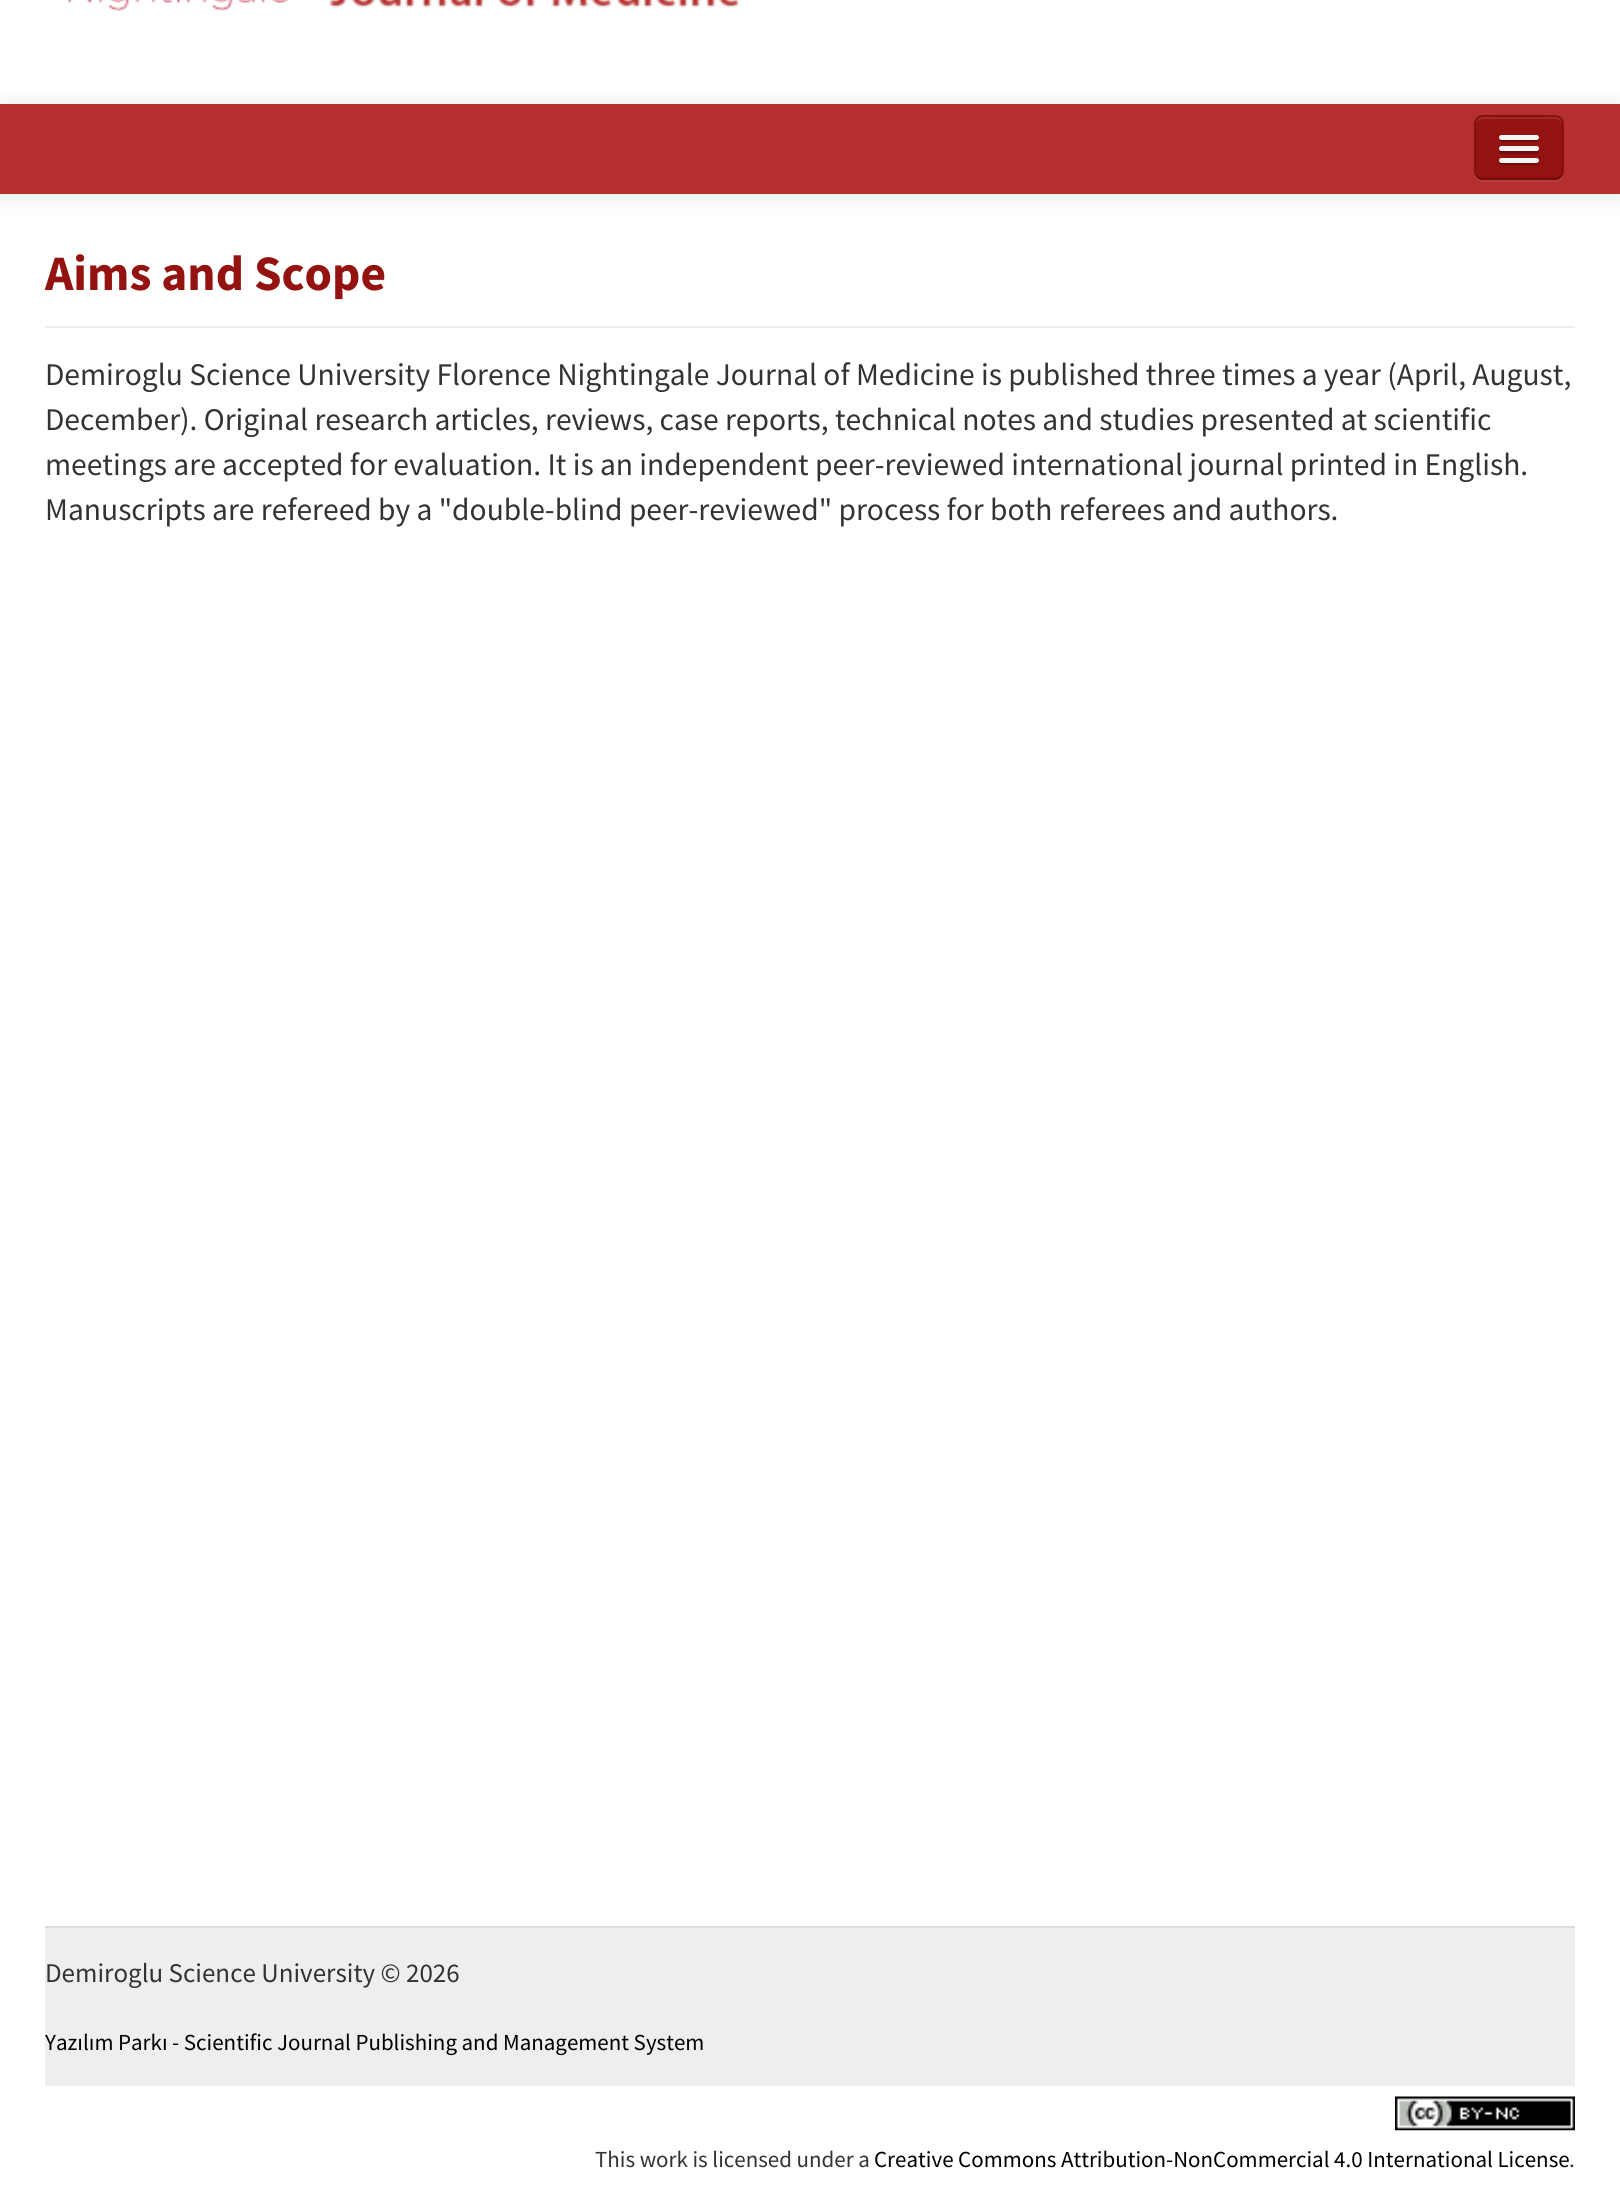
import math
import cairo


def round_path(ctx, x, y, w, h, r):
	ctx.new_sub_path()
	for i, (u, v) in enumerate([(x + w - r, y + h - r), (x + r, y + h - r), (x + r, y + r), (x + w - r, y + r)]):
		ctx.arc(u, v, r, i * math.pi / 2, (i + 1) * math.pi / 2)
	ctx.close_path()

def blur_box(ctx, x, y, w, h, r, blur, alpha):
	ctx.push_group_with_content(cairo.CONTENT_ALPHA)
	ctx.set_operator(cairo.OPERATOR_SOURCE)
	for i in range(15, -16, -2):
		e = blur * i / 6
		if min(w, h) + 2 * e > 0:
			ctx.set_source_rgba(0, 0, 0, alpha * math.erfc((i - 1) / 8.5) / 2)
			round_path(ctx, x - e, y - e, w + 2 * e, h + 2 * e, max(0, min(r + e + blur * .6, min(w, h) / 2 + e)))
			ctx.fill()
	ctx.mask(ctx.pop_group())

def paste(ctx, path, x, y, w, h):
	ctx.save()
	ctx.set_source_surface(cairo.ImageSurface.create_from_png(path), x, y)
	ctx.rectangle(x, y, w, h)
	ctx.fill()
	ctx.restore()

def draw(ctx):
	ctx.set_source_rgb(1, 1, 1)
	ctx.paint()
	paste(ctx, 'media/1.png', 68, 0, 671, 11)
	ctx.set_source_rgb(0, 0, 0)
	blur_box(ctx, 0, 106, 1620, 90, 0, 11, 0.1)
	ctx.set_source_rgb(0.71, 0.184, 0.18)
	ctx.rectangle(0, 104, 1620, 90)
	ctx.fill()
	ctx.set_source_rgb(0.733, 0.247, 0.243)
	ctx.new_path()
	ctx.move_to(1474, 173)
	ctx.curve_to(1474, 178, 1478, 182, 1483, 182)
	ctx.line_to(1555, 182)
	ctx.curve_to(1560, 182, 1564, 178, 1564, 173)
	ctx.line_to(1564, 124)
	ctx.line_to(1564, 171)
	ctx.curve_to(1564, 176, 1560, 180, 1555, 180)
	ctx.line_to(1483, 180)
	ctx.curve_to(1479, 180, 1475, 177, 1474, 173)
	ctx.close_path()
	ctx.fill()
	ctx.set_source_rgb(0.58, 0.071, 0.059)
	round_path(ctx, 1474, 115, 90, 65, 9)
	ctx.fill()
	ctx.set_source_rgb(0.624, 0.165, 0.153)
	ctx.new_path()
	ctx.move_to(1483, 119)
	ctx.line_to(1555, 119)
	ctx.curve_to(1558, 119, 1562, 122, 1562, 126)
	ctx.curve_to(1562, 114, 1552, 117, 1543, 117)
	ctx.line_to(1495, 117)
	ctx.curve_to(1486, 117, 1476, 114, 1476, 126)
	ctx.curve_to(1476, 122, 1479, 119, 1483, 119)
	ctx.close_path()
	ctx.fill()
	ctx.new_path()
	ctx.move_to(1560.5, 176.5)
	ctx.curve_to(1559, 178, 1557, 179, 1555, 179)
	ctx.line_to(1483, 179)
	ctx.curve_to(1480.5, 179, 1478.5, 178, 1477, 176.5)
	ctx.set_source_rgba(0, 0, 0, 0.25)
	ctx.set_line_width(2.2)
	ctx.stroke()
	ctx.new_path()
	ctx.move_to(1477, 176.5)
	ctx.curve_to(1475.5, 175, 1475, 173, 1475, 171)
	ctx.line_to(1475, 124)
	ctx.curve_to(1475, 121.5, 1475.5, 119.5, 1477, 118)
	ctx.curve_to(1478.5, 116.5, 1480.5, 116, 1483, 116)
	ctx.line_to(1555, 116)
	ctx.curve_to(1557, 116, 1559, 116.5, 1560.5, 118)
	ctx.curve_to(1562, 119.5, 1562.5, 121.5, 1562.5, 124)
	ctx.line_to(1562.5, 171)
	ctx.curve_to(1562.5, 173, 1562, 175, 1560.5, 176.5)
	ctx.set_source_rgba(0, 0, 0, 0.1)
	ctx.stroke()
	ctx.set_source_rgb(0.435, 0.055, 0.043)
	ctx.new_path()
	ctx.move_to(1499, 139)
	ctx.curve_to(1498, 143, 1506, 142, 1507, 142)
	ctx.line_to(1531, 142)
	ctx.curve_to(1532, 142, 1541, 143, 1539, 138)
	ctx.line_to(1537, 139)
	ctx.curve_to(1533, 140, 1500, 140, 1499, 139)
	ctx.close_path()
	ctx.fill()
	ctx.set_source_rgb(0.961, 0.961, 0.961)
	round_path(ctx, 1499, 135, 40, 5, 2.5)
	ctx.fill()
	ctx.set_source_rgb(0.435, 0.055, 0.043)
	ctx.new_path()
	ctx.move_to(1499, 150)
	ctx.curve_to(1497, 155, 1507, 154, 1507, 154)
	ctx.line_to(1531, 154)
	ctx.curve_to(1531, 154, 1542, 155, 1538, 150)
	ctx.line_to(1537, 151)
	ctx.curve_to(1534, 151, 1501, 151, 1499, 150)
	ctx.close_path()
	ctx.fill()
	ctx.set_source_rgb(0.961, 0.961, 0.961)
	round_path(ctx, 1499, 146, 40, 5, 2.5)
	ctx.fill()
	ctx.set_source_rgb(0.435, 0.055, 0.043)
	ctx.new_path()
	ctx.move_to(1499, 161)
	ctx.curve_to(1497, 166, 1506, 165, 1507, 165)
	ctx.line_to(1531, 165)
	ctx.curve_to(1531, 165, 1542, 166, 1539, 161)
	ctx.line_to(1537, 162)
	ctx.curve_to(1533, 162, 1501, 163, 1499, 161)
	ctx.close_path()
	ctx.fill()
	ctx.set_source_rgb(0.961, 0.961, 0.961)
	round_path(ctx, 1499, 158, 40, 5, 2.5)
	ctx.fill()
	ctx.set_source_rgb(0.933, 0.933, 0.933)
	ctx.rectangle(45, 326, 1530, 2)
	ctx.fill()
	ctx.select_font_face('Source Sans Pro', cairo.FONT_SLANT_NORMAL, cairo.FONT_WEIGHT_BOLD)
	ctx.set_font_size(49.5)
	ctx.set_source_rgb(0.58, 0.071, 0.059)
	ctx.move_to(45, 290)
	ctx.show_text('Aims and Scope')
	ctx.select_font_face('Source Sans Pro')
	ctx.set_font_size(31.5)
	ctx.set_source_rgb(0.2, 0.2, 0.2)
	for x, y, s in [
		(45, 385, 'Demiroglu Science University Florence Nightingale Journal of Medicine is published three times a year (April, August,'),
		(45, 430, 'December). Original research articles, reviews, case reports, technical notes and studies presented at scientific'),
		(45, 475, 'meetings are accepted for evaluation. It is an independent peer-reviewed international journal printed in English.'),
		(45, 520, 'Manuscripts are refereed by a "double-blind peer-reviewed" process for both referees and authors.'),
	]:
		ctx.move_to(x, y)
		ctx.show_text(s)
	ctx.set_source_rgb(0.933, 0.933, 0.933)
	ctx.rectangle(45, 1928, 1530, 158)
	ctx.fill()
	ctx.set_source_rgb(0.867, 0.867, 0.867)
	ctx.rectangle(45, 1926, 1530, 2)
	ctx.fill()
	ctx.set_font_size(27)
	ctx.set_source_rgb(0.2, 0.2, 0.2)
	ctx.move_to(45, 1982)
	ctx.show_text('Demiroglu Science University © 2026')
	ctx.set_font_size(22.95)
	ctx.set_source_rgb(0, 0, 0)
	ctx.move_to(45, 2050)
	ctx.show_text('Yazılım Parkı - Scientific Journal Publishing and Management System')
	paste(ctx, 'media/2.png', 1395, 2096, 180, 35)
	ctx.set_source_rgb(0.2, 0.2, 0.2)
	ctx.move_to(595, 2167)
	ctx.show_text('This work is licensed under a')
	ctx.set_source_rgb(0, 0, 0)
	ctx.move_to(874, 2167)
	ctx.show_text('Creative Commons Attribution-NonCommercial 4.0 International License')
	ctx.set_source_rgb(0.2, 0.2, 0.2)
	ctx.move_to(1569, 2167)
	ctx.show_text('.')


surface = cairo.ImageSurface(cairo.FORMAT_RGB24, 1620, 2205)
ctx = cairo.Context(surface)
options = cairo.FontOptions()
options.set_hint_metrics(cairo.HINT_METRICS_OFF)
options.set_hint_style(cairo.HINT_STYLE_NONE)
ctx.set_font_options(options)
ctx.set_miter_limit(4)
draw(ctx)
surface.write_to_png('image.png')
